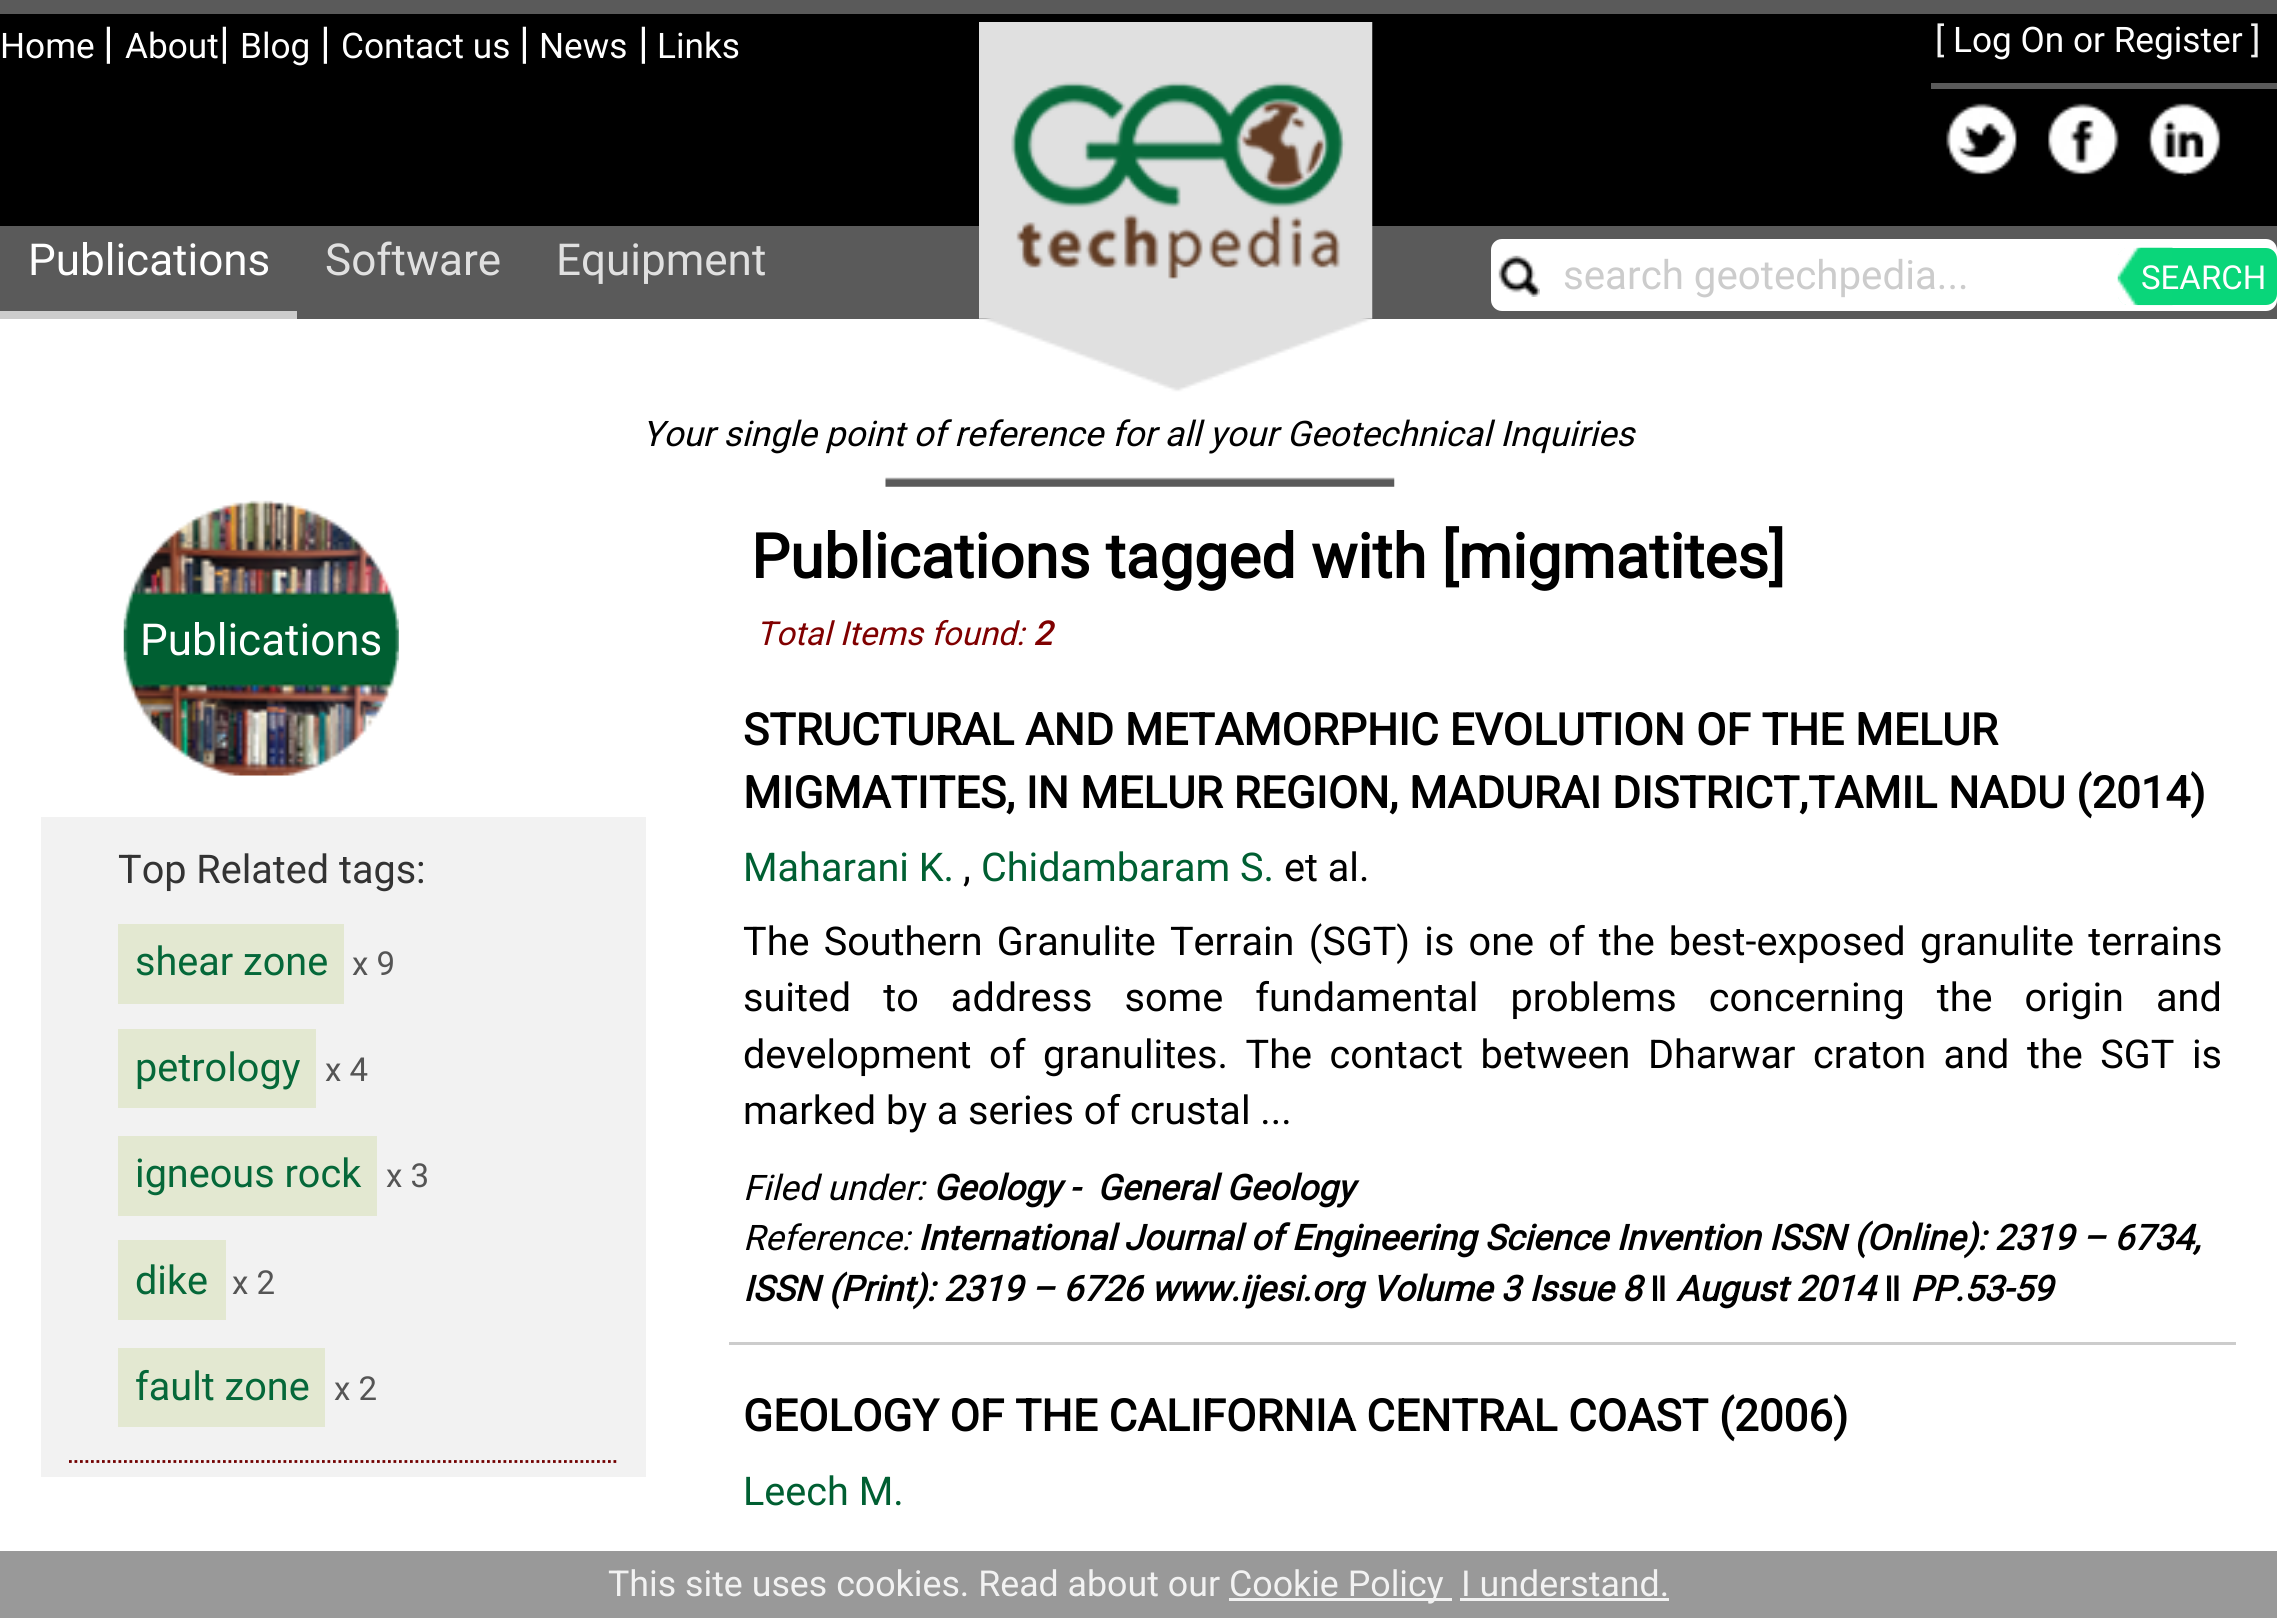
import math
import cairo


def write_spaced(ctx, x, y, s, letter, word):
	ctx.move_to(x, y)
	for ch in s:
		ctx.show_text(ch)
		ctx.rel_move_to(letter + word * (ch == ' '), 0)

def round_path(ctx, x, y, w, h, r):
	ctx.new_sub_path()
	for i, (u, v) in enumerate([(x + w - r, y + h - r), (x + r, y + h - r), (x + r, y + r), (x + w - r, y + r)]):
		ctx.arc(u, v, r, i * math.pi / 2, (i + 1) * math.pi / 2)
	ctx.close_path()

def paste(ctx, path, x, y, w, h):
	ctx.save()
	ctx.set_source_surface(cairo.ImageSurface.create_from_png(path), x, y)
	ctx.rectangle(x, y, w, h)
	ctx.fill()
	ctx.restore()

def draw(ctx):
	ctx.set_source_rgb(1, 1, 1)
	ctx.paint()
	ctx.set_source_rgb(0, 0, 0)
	ctx.rectangle(0, 14, 2277, 212)
	ctx.fill()
	ctx.set_source_rgb(0.353, 0.353, 0.353)
	ctx.rectangle(0, 0, 2277, 14)
	ctx.fill()
	ctx.select_font_face('Roboto')
	ctx.set_font_size(35.2)
	ctx.set_source_rgb(1, 1, 1)
	ctx.move_to(0, 58)
	ctx.show_text('Home')
	ctx.set_font_size(44)
	ctx.move_to(103, 58)
	ctx.show_text('|')
	ctx.set_font_size(35.2)
	ctx.move_to(125, 58)
	ctx.show_text('About')
	ctx.set_font_size(44)
	ctx.move_to(219, 58)
	ctx.show_text('|')
	ctx.set_font_size(35.2)
	ctx.move_to(240, 58)
	ctx.show_text('Blog')
	ctx.set_font_size(44)
	ctx.move_to(320, 58)
	ctx.show_text('|')
	ctx.set_font_size(35.2)
	ctx.move_to(341, 58)
	ctx.show_text('Contact us')
	ctx.set_font_size(44)
	ctx.move_to(519, 58)
	ctx.show_text('|')
	ctx.set_font_size(35.2)
	ctx.move_to(539, 58)
	ctx.show_text('News')
	ctx.set_font_size(44)
	ctx.move_to(638, 58)
	ctx.show_text('|')
	ctx.set_font_size(35.2)
	ctx.move_to(657, 58)
	ctx.show_text('Links')
	ctx.set_source_rgb(0.353, 0.353, 0.353)
	ctx.rectangle(0, 226, 2277, 93)
	ctx.fill()
	paste(ctx, 'media/1.png', 979, 22, 394, 370)
	ctx.rectangle(1931, 83, 346, 6)
	ctx.fill()
	ctx.set_source_rgb(0.949, 0.949, 0.949)
	ctx.move_to(1935, 52)
	ctx.show_text('[')
	ctx.set_source_rgb(1, 1, 1)
	ctx.move_to(1953, 52)
	ctx.show_text('Log On or Register')
	ctx.set_source_rgb(0.949, 0.949, 0.949)
	ctx.move_to(2251, 52)
	ctx.show_text(']')
	paste(ctx, 'media/2.png', 1946, 103, 71, 72)
	paste(ctx, 'media/3.png', 2048, 103, 71, 72)
	paste(ctx, 'media/4.png', 2147, 103, 74, 73)
	ctx.set_source_rgb(0.8, 0.8, 0.8)
	ctx.rectangle(0, 311, 297, 8)
	ctx.fill()
	ctx.set_font_size(44)
	ctx.set_source_rgb(1, 1, 1)
	ctx.move_to(28, 275)
	ctx.show_text('Publications')
	ctx.set_source_rgb(0.878, 0.878, 0.878)
	ctx.move_to(325, 275)
	ctx.show_text('Software')
	ctx.move_to(556, 275)
	ctx.show_text('Equipment')
	ctx.set_source_rgb(1, 1, 1)
	round_path(ctx, 1491, 239, 786, 72, 11)
	ctx.fill()
	paste(ctx, 'media/5.png', 1498, 255, 42, 42)
	ctx.set_font_size(40.25)
	ctx.set_source_rgb(0.8, 0.8, 0.8)
	ctx.move_to(1563, 289)
	ctx.show_text('search geotechpedia...')
	ctx.set_source_rgb(0.039, 0.839, 0.478)
	round_path(ctx, 2118, 248, 159, 57, 11)
	ctx.fill()
	paste(ctx, 'media/6.png', 2117, 247, 56, 59)
	ctx.set_font_size(33)
	ctx.set_source_rgb(1, 1, 1)
	ctx.move_to(2141, 289)
	ctx.show_text('SEARCH')
	paste(ctx, 'media/7.png', 885, 477, 510, 10)
	ctx.select_font_face('Roboto', cairo.FONT_SLANT_ITALIC)
	ctx.set_font_size(35.2)
	ctx.set_source_rgb(0, 0, 0)
	ctx.move_to(642, 446)
	ctx.show_text('Your single point of reference for all your Geotechnical Inquiries')
	paste(ctx, 'media/8.png', 123, 500, 276, 276)
	ctx.select_font_face('Roboto')
	ctx.set_font_size(44)
	ctx.set_source_rgb(1, 1, 1)
	ctx.move_to(140, 655)
	ctx.show_text('Publications')
	ctx.set_source_rgb(0.949, 0.949, 0.949)
	ctx.rectangle(41, 817, 605, 660)
	ctx.fill()
	ctx.new_path()
	ctx.move_to(69, 1461.5)
	ctx.line_to(619, 1461.5)
	ctx.set_source_rgb(0.443, 0, 0)
	ctx.set_line_width(2.8)
	ctx.set_dash([2.75, 2.75])
	ctx.stroke()
	ctx.set_font_size(39.6)
	ctx.set_source_rgb(0.2, 0.2, 0.2)
	ctx.move_to(118, 883)
	ctx.show_text('Top Related tags:')
	ctx.set_source_rgb(0.89, 0.91, 0.82)
	ctx.rectangle(118, 924, 226, 80)
	ctx.fill()
	ctx.set_source_rgb(0.02, 0.408, 0.224)
	ctx.move_to(135, 975)
	ctx.show_text('shear zone')
	ctx.set_font_size(33)
	ctx.set_source_rgb(0.333, 0.333, 0.333)
	ctx.move_to(352, 975)
	ctx.show_text('x 9')
	ctx.set_source_rgb(0.89, 0.91, 0.82)
	ctx.rectangle(118, 1029, 198, 79)
	ctx.fill()
	ctx.set_font_size(39.6)
	ctx.set_source_rgb(0.02, 0.408, 0.224)
	ctx.move_to(135, 1081)
	ctx.show_text('petrology')
	ctx.set_font_size(33)
	ctx.set_source_rgb(0.333, 0.333, 0.333)
	ctx.move_to(325, 1081)
	ctx.show_text('x 4')
	ctx.set_source_rgb(0.89, 0.91, 0.82)
	ctx.rectangle(118, 1136, 259, 80)
	ctx.fill()
	ctx.set_font_size(39.6)
	ctx.set_source_rgb(0.02, 0.408, 0.224)
	ctx.move_to(135, 1187)
	ctx.show_text('igneous rock')
	ctx.set_font_size(33)
	ctx.set_source_rgb(0.333, 0.333, 0.333)
	ctx.move_to(386, 1187)
	ctx.show_text('x 3')
	ctx.set_source_rgb(0.89, 0.91, 0.82)
	ctx.rectangle(118, 1240, 108, 80)
	ctx.fill()
	ctx.set_font_size(39.6)
	ctx.set_source_rgb(0.02, 0.408, 0.224)
	ctx.move_to(135, 1294)
	ctx.show_text('dike')
	ctx.set_font_size(33)
	ctx.set_source_rgb(0.333, 0.333, 0.333)
	ctx.move_to(232, 1294)
	ctx.show_text('x 2')
	ctx.set_source_rgb(0.89, 0.91, 0.82)
	ctx.rectangle(118, 1348, 207, 79)
	ctx.fill()
	ctx.set_font_size(39.6)
	ctx.set_source_rgb(0.02, 0.408, 0.224)
	ctx.move_to(135, 1400)
	ctx.show_text('fault zone')
	ctx.set_font_size(33)
	ctx.set_source_rgb(0.333, 0.333, 0.333)
	ctx.move_to(334, 1400)
	ctx.show_text('x 2')
	ctx.select_font_face('Roboto', cairo.FONT_SLANT_NORMAL, cairo.FONT_WEIGHT_BOLD)
	ctx.set_font_size(61.6)
	ctx.set_source_rgb(0, 0, 0)
	ctx.move_to(751, 578)
	ctx.show_text('Publications tagged with [migmatites]')
	ctx.select_font_face('Roboto', cairo.FONT_SLANT_ITALIC)
	ctx.set_font_size(33)
	ctx.set_source_rgb(0.502, 0, 0)
	ctx.move_to(756, 645)
	ctx.show_text('Total Items found:')
	ctx.select_font_face('Roboto', cairo.FONT_SLANT_ITALIC, cairo.FONT_WEIGHT_BOLD)
	ctx.move_to(1033, 645)
	ctx.show_text('2')
	ctx.set_source_rgb(0.8, 0.8, 0.8)
	ctx.rectangle(729, 1342, 1507, 3)
	ctx.fill()
	ctx.select_font_face('Roboto', cairo.FONT_SLANT_NORMAL, cairo.FONT_WEIGHT_BOLD)
	ctx.set_font_size(44)
	ctx.set_source_rgb(0, 0, 0)
	ctx.move_to(743, 745)
	ctx.show_text('STRUCTURAL AND METAMORPHIC EVOLUTION OF THE MELUR')
	ctx.move_to(743, 808)
	ctx.show_text('MIGMATITES, IN MELUR REGION, MADURAI DISTRICT,TAMIL NADU (2014)')
	ctx.select_font_face('Roboto')
	ctx.set_font_size(39.6)
	ctx.set_source_rgb(0, 0.373, 0.196)
	ctx.move_to(743, 881)
	ctx.show_text('Maharani K.')
	ctx.set_source_rgb(0, 0, 0)
	ctx.move_to(963, 881)
	ctx.show_text(',')
	ctx.set_source_rgb(0, 0.373, 0.196)
	ctx.move_to(981, 881)
	ctx.show_text('Chidambaram S.')
	ctx.set_source_rgb(0, 0, 0)
	ctx.move_to(1284, 881)
	ctx.show_text('et al.')
	write_spaced(ctx, 743, 955, 'The Southern Granulite Terrain (SGT) is one of the best-exposed granulite terrains', 0, 4.4)
	write_spaced(ctx, 743, 1011, 'suited to address some fundamental problems concerning the origin and', 0, 22.25)
	write_spaced(ctx, 743, 1068, 'development of granulites. The contact between Dharwar craton and the SGT is', 0, 7.75)
	ctx.move_to(743, 1124)
	ctx.show_text('marked by a series of crustal ...')
	ctx.select_font_face('Roboto', cairo.FONT_SLANT_ITALIC)
	ctx.set_font_size(35.2)
	ctx.move_to(743, 1200)
	ctx.show_text('Filed under:')
	ctx.select_font_face('Roboto', cairo.FONT_SLANT_ITALIC, cairo.FONT_WEIGHT_BOLD)
	ctx.move_to(933, 1200)
	ctx.show_text('Geology -')
	ctx.move_to(1097, 1200)
	ctx.show_text('General Geology')
	ctx.select_font_face('Roboto', cairo.FONT_SLANT_ITALIC)
	ctx.move_to(743, 1250)
	ctx.show_text('Reference:')
	ctx.select_font_face('Roboto', cairo.FONT_SLANT_ITALIC, cairo.FONT_WEIGHT_BOLD)
	ctx.move_to(918, 1250)
	ctx.show_text('International Journal of Engineering Science Invention ISSN (Online): 2319 – 6734,')
	ctx.move_to(743, 1301)
	ctx.show_text('ISSN (Print): 2319 – 6726 www.ijesi.org Volume 3 Issue 8')
	ctx.select_font_face('Liberation Sans', cairo.FONT_SLANT_ITALIC, cairo.FONT_WEIGHT_BOLD)
	ctx.move_to(1650, 1301)
	ctx.show_text('ǁ')
	ctx.select_font_face('Roboto', cairo.FONT_SLANT_ITALIC, cairo.FONT_WEIGHT_BOLD)
	ctx.move_to(1676, 1301)
	ctx.show_text('August 2014')
	ctx.select_font_face('Liberation Sans', cairo.FONT_SLANT_ITALIC, cairo.FONT_WEIGHT_BOLD)
	ctx.move_to(1884, 1301)
	ctx.show_text('ǁ')
	ctx.select_font_face('Roboto', cairo.FONT_SLANT_ITALIC, cairo.FONT_WEIGHT_BOLD)
	ctx.move_to(1910, 1301)
	ctx.show_text('PP.53-59')
	ctx.select_font_face('Roboto', cairo.FONT_SLANT_NORMAL, cairo.FONT_WEIGHT_BOLD)
	ctx.set_font_size(44)
	ctx.move_to(743, 1431)
	ctx.show_text('GEOLOGY OF THE CALIFORNIA CENTRAL COAST (2006)')
	ctx.select_font_face('Roboto')
	ctx.set_font_size(39.6)
	ctx.set_source_rgb(0, 0.373, 0.196)
	ctx.move_to(743, 1505)
	ctx.show_text('Leech M.')
	ctx.set_source_rgb(0.6, 0.6, 0.6)
	ctx.rectangle(0, 1551, 2277, 67)
	ctx.fill()
	ctx.set_font_size(35.75)
	ctx.set_source_rgb(0.949, 0.949, 0.949)
	ctx.move_to(608, 1596)
	ctx.show_text('This site uses cookies. Read about our')
	ctx.rectangle(1229, 1598, 223, 3)
	ctx.fill()
	ctx.move_to(1229, 1596)
	ctx.show_text('Cookie Policy')
	ctx.move_to(1461, 1596)
	ctx.show_text('I understand.')
	ctx.rectangle(1460, 1598, 209, 3)
	ctx.fill()


surface = cairo.ImageSurface(cairo.FORMAT_RGB24, 2277, 1618)
ctx = cairo.Context(surface)
options = cairo.FontOptions()
options.set_hint_metrics(cairo.HINT_METRICS_OFF)
options.set_hint_style(cairo.HINT_STYLE_NONE)
ctx.set_font_options(options)
ctx.set_miter_limit(4)
draw(ctx)
surface.write_to_png('image.png')
